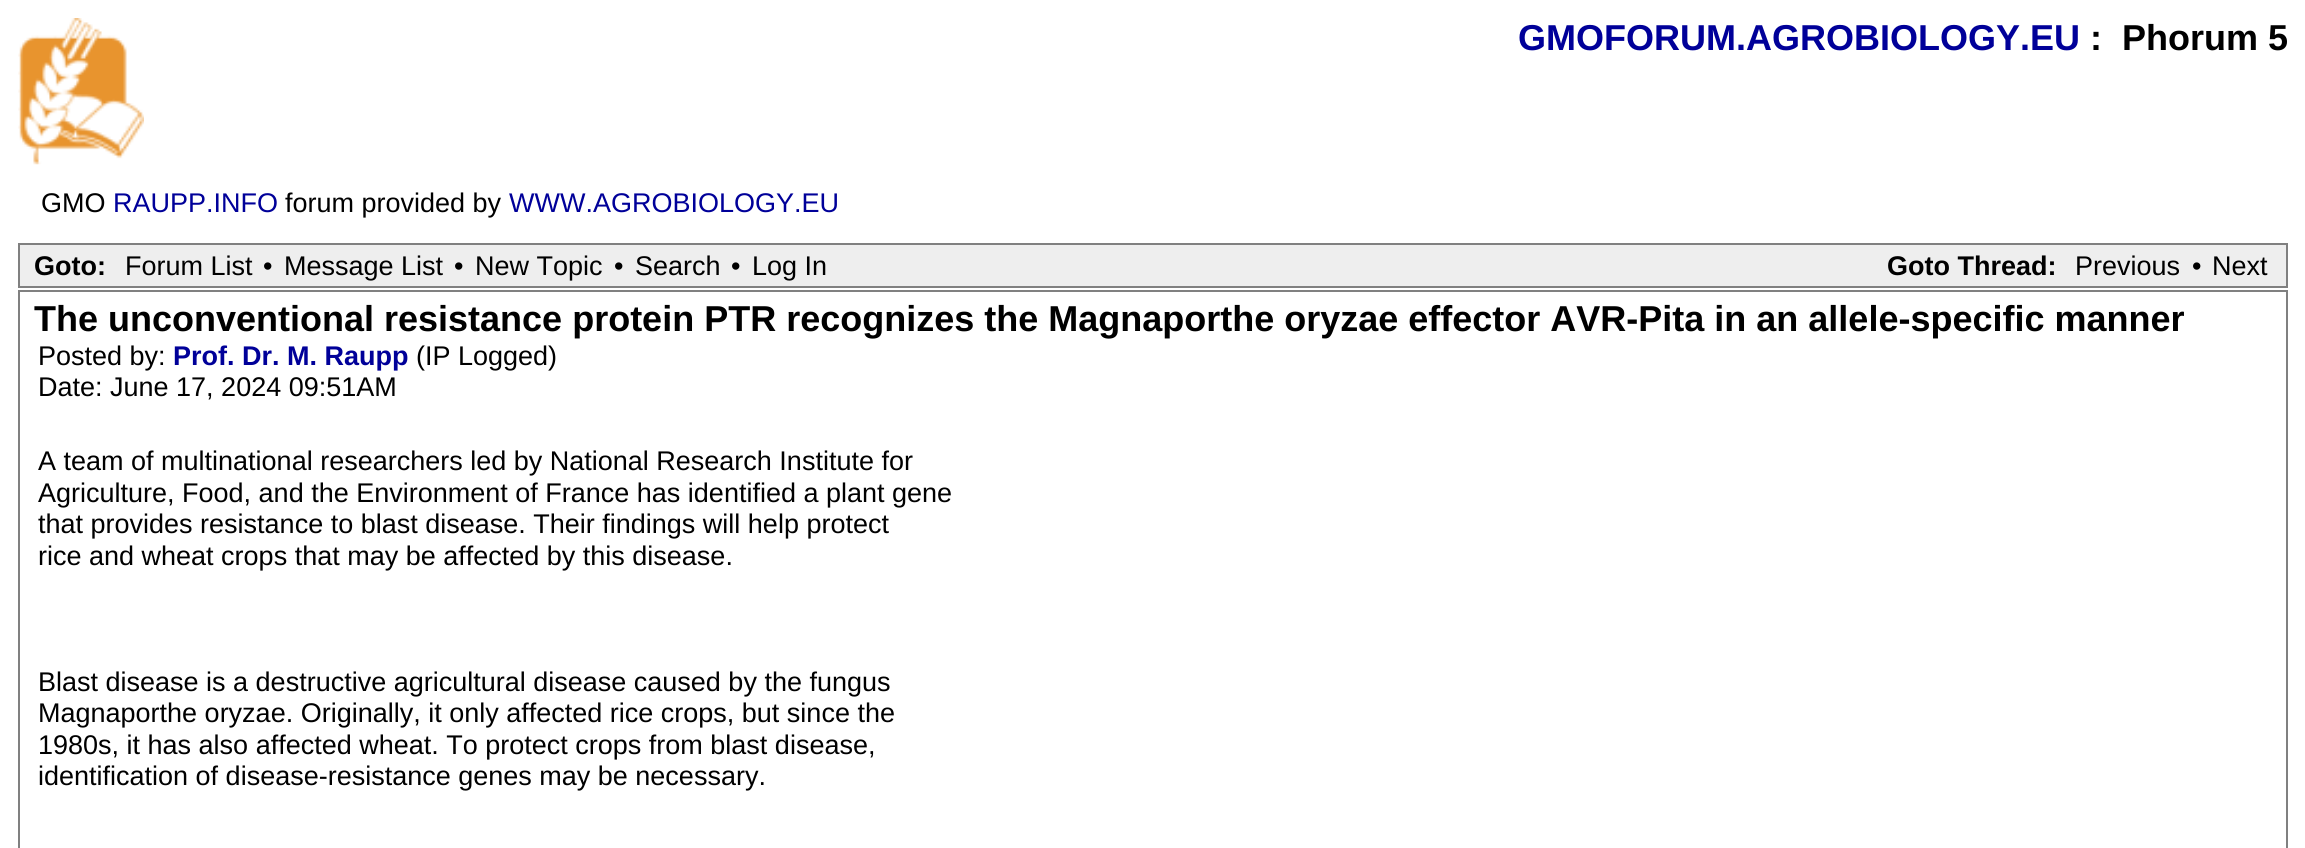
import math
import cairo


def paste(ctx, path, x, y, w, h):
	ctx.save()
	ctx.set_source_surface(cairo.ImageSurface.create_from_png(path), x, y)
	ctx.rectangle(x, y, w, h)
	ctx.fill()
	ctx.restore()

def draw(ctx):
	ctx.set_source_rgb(1, 1, 1)
	ctx.paint()
	paste(ctx, 'media/1.png', 18, 18, 126, 147)
	ctx.select_font_face('Liberation Sans', cairo.FONT_SLANT_NORMAL, cairo.FONT_WEIGHT_BOLD)
	ctx.set_font_size(36)
	ctx.set_source_rgb(0, 0, 0.6)
	ctx.move_to(1518, 50)
	ctx.show_text('GMOFORUM.AGROBIOLOGY.EU')
	ctx.set_source_rgb(0, 0, 0)
	ctx.move_to(2090, 50)
	ctx.show_text(':')
	ctx.move_to(2122, 50)
	ctx.show_text('Phorum 5')
	ctx.select_font_face('Liberation Sans')
	ctx.set_font_size(27)
	ctx.move_to(41, 212)
	ctx.show_text('GMO')
	ctx.set_source_rgb(0, 0, 0.6)
	ctx.move_to(113, 212)
	ctx.show_text('RAUPP.INFO')
	ctx.set_source_rgb(0, 0, 0)
	ctx.move_to(285, 212)
	ctx.show_text('forum provided by')
	ctx.set_source_rgb(0, 0, 0.6)
	ctx.move_to(509, 212)
	ctx.show_text('WWW.AGROBIOLOGY.EU')
	ctx.set_source_rgb(0.933, 0.933, 0.933)
	ctx.rectangle(19, 244, 2268, 43)
	ctx.fill_preserve()
	ctx.set_source_rgb(0.502, 0.502, 0.502)
	ctx.stroke()
	ctx.select_font_face('Liberation Sans', cairo.FONT_SLANT_NORMAL, cairo.FONT_WEIGHT_BOLD)
	ctx.set_source_rgb(0, 0, 0)
	ctx.move_to(34, 275)
	ctx.show_text('Goto:')
	ctx.select_font_face('Liberation Sans')
	for x, y, s in [
		(125, 275, 'Forum List'),
		(263, 275, '•'),
		(284, 275, 'Message List'),
		(454, 275, '•'),
		(475, 275, 'New Topic'),
		(614, 275, '•'),
		(635, 275, 'Search'),
		(731, 275, '•'),
		(752, 275, 'Log In'),
	]:
		ctx.move_to(x, y)
		ctx.show_text(s)
	ctx.select_font_face('Liberation Sans', cairo.FONT_SLANT_NORMAL, cairo.FONT_WEIGHT_BOLD)
	ctx.move_to(1887, 275)
	ctx.show_text('Goto Thread:')
	ctx.select_font_face('Liberation Sans')
	for x, y, s in [
		(2075, 275, 'Previous'),
		(2192, 275, '•'),
		(2212, 275, 'Next'),
	]:
		ctx.move_to(x, y)
		ctx.show_text(s)
	ctx.rectangle(19, 291, 2268, 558)
	ctx.set_source_rgb(0.502, 0.502, 0.502)
	ctx.stroke()
	ctx.select_font_face('Liberation Sans', cairo.FONT_SLANT_NORMAL, cairo.FONT_WEIGHT_BOLD)
	ctx.set_font_size(36)
	ctx.set_source_rgb(0, 0, 0)
	ctx.move_to(34, 331)
	ctx.show_text('The unconventional resistance protein PTR recognizes the Magnaporthe oryzae effector AVR-Pita in an allele-specific manner')
	ctx.select_font_face('Liberation Sans')
	ctx.set_font_size(27)
	ctx.move_to(38, 365)
	ctx.show_text('Posted by:')
	ctx.select_font_face('Liberation Sans', cairo.FONT_SLANT_NORMAL, cairo.FONT_WEIGHT_BOLD)
	ctx.set_source_rgb(0, 0, 0.6)
	ctx.move_to(173, 365)
	ctx.show_text('Prof. Dr. M. Raupp')
	ctx.select_font_face('Liberation Sans')
	ctx.set_source_rgb(0, 0, 0)
	for x, y, s in [
		(416, 365, '(IP Logged)'),
		(38, 396, 'Date: June 17, 2024 09:51AM'),
		(38, 470, 'A team of multinational researchers led by National Research Institute for'),
		(38, 502, 'Agriculture, Food, and the Environment of France has identified a plant gene'),
		(38, 533, 'that provides resistance to blast disease. Their findings will help protect'),
		(38, 565, 'rice and wheat crops that may be affected by this disease.'),
		(38, 691, 'Blast disease is a destructive agricultural disease caused by the fungus'),
		(38, 722, 'Magnaporthe oryzae. Originally, it only affected rice crops, but since the'),
		(38, 754, '1980s, it has also affected wheat. To protect crops from blast disease,'),
		(38, 785, 'identification of disease-resistance genes may be necessary.'),
	]:
		ctx.move_to(x, y)
		ctx.show_text(s)


surface = cairo.ImageSurface(cairo.FORMAT_RGB24, 2305, 848)
ctx = cairo.Context(surface)
options = cairo.FontOptions()
options.set_hint_metrics(cairo.HINT_METRICS_OFF)
options.set_hint_style(cairo.HINT_STYLE_NONE)
ctx.set_font_options(options)
ctx.set_miter_limit(4)
draw(ctx)
surface.write_to_png('image.png')
